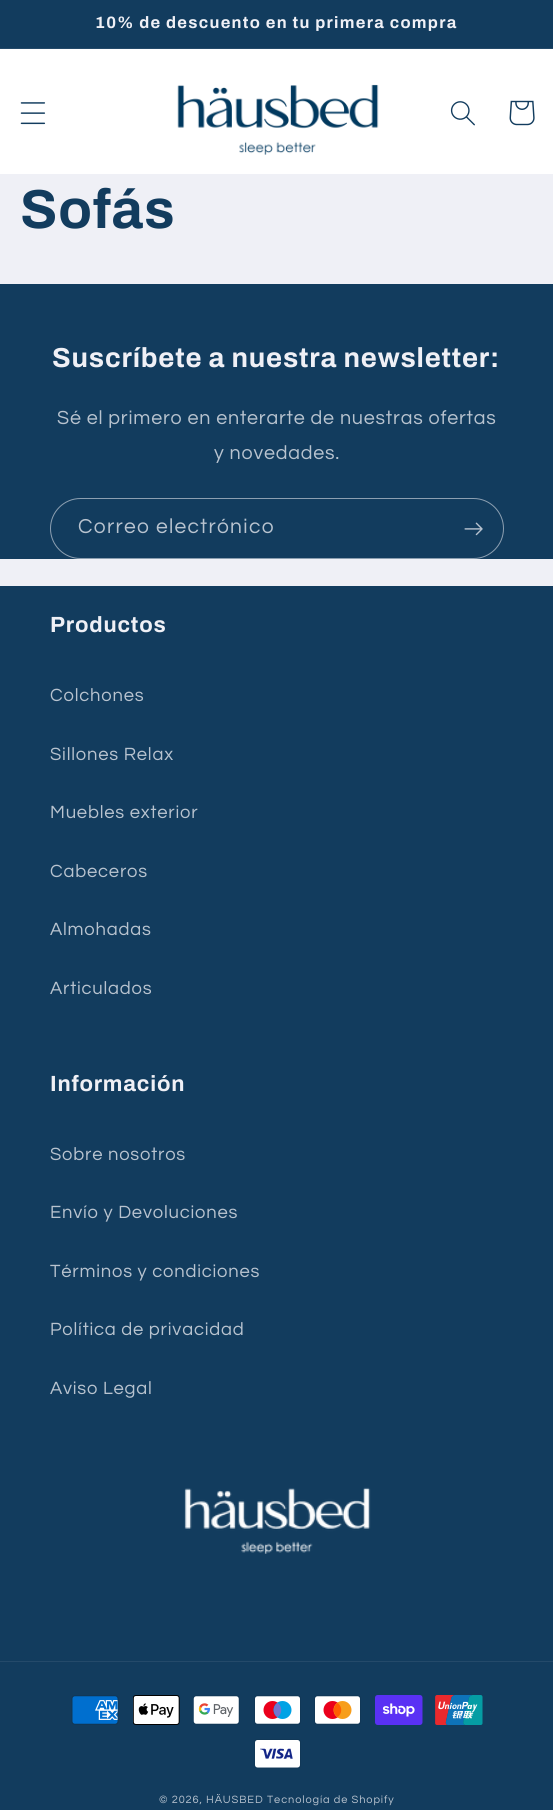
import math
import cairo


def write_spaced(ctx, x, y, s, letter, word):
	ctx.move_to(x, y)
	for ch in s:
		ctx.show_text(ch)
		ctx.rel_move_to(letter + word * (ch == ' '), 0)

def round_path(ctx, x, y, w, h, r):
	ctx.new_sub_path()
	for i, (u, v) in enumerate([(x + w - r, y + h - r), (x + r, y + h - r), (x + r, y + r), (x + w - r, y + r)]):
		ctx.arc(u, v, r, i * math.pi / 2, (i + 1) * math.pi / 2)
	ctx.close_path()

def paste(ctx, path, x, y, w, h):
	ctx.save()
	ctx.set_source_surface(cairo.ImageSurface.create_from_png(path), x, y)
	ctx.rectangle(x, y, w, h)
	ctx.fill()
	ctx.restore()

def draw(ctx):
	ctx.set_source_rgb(0.937, 0.941, 0.961)
	ctx.paint()
	ctx.set_source_rgb(0.071, 0.235, 0.369)
	ctx.rectangle(0, 0, 553, 48)
	ctx.fill()
	ctx.set_source_rgb(0.141, 0.29, 0.416)
	ctx.rectangle(0, 48, 553, 1)
	ctx.fill()
	ctx.select_font_face('Archivo', cairo.FONT_SLANT_NORMAL, cairo.FONT_WEIGHT_BOLD)
	ctx.set_font_size(16.5)
	ctx.set_source_rgb(0.937, 0.941, 0.961)
	write_spaced(ctx, 95, 28, '10% de descuento en tu primera compra', 1.3, 0)
	ctx.set_source_rgb(1, 1, 1)
	ctx.rectangle(0, 49, 553, 125)
	ctx.fill()
	paste(ctx, 'media/1.png', 20, 102, 26, 23)
	paste(ctx, 'media/2.png', 177, 84, 202, 71)
	paste(ctx, 'media/3.png', 450, 101, 25, 25)
	paste(ctx, 'media/4.png', 509, 100, 26, 26)
	ctx.set_font_size(55)
	ctx.set_source_rgb(0.071, 0.235, 0.369)
	write_spaced(ctx, 20, 228, 'Sofás', 0.8, 0)
	ctx.rectangle(0, 284, 553, 275)
	ctx.fill()
	ctx.set_font_size(27.5)
	ctx.set_source_rgb(0.937, 0.941, 0.961)
	write_spaced(ctx, 52, 367, 'Suscríbete a nuestra newsletter:', 0.8, 0)
	ctx.select_font_face('Questrial')
	ctx.set_font_size(19.7)
	ctx.set_source_rgb(0.722, 0.765, 0.812)
	write_spaced(ctx, 57, 424, 'Sé el primero en enterarte de nuestras ofertas', 0.8, 0)
	write_spaced(ctx, 214, 459, 'y novedades.', 0.8, 0)
	round_path(ctx, 50.5, 498.5, 453, 60, 30)
	ctx.set_source_rgb(0.549, 0.624, 0.694)
	ctx.set_line_width(1)
	ctx.stroke()
	ctx.set_font_size(21)
	ctx.set_source_rgb(0.722, 0.765, 0.812)
	write_spaced(ctx, 78, 533, 'Correo electrónico', 1.3, 0)
	paste(ctx, 'media/5.png', 464, 522, 19, 14)
	ctx.set_source_rgb(0.071, 0.235, 0.369)
	ctx.rectangle(0, 586, 553, 1224)
	ctx.fill()
	ctx.select_font_face('Archivo', cairo.FONT_SLANT_NORMAL, cairo.FONT_WEIGHT_BOLD)
	ctx.set_font_size(22)
	ctx.set_source_rgb(0.937, 0.941, 0.961)
	write_spaced(ctx, 50, 632, 'Productos', 0.8, 0)
	ctx.select_font_face('Questrial')
	ctx.set_font_size(18.4)
	ctx.set_source_rgb(0.722, 0.765, 0.812)
	for x, y, s in [
		(50, 701, 'Colchones'),
		(50, 760, 'Sillones Relax'),
		(50, 818, 'Muebles exterior'),
		(50, 877, 'Cabeceros'),
		(50, 935, 'Almohadas'),
		(50, 994, 'Articulados'),
	]:
		write_spaced(ctx, x, y, s, 0.8, 0)
	ctx.select_font_face('Archivo', cairo.FONT_SLANT_NORMAL, cairo.FONT_WEIGHT_BOLD)
	ctx.set_font_size(22)
	ctx.set_source_rgb(0.937, 0.941, 0.961)
	write_spaced(ctx, 50, 1091, 'Información', 0.8, 0)
	ctx.select_font_face('Questrial')
	ctx.set_font_size(18.4)
	ctx.set_source_rgb(0.722, 0.765, 0.812)
	for x, y, s in [
		(50, 1160, 'Sobre nosotros'),
		(50, 1218, 'Envío y Devoluciones'),
		(50, 1277, 'Términos y condiciones'),
		(50, 1335, 'Política de privacidad'),
		(50, 1394, 'Aviso Legal'),
	]:
		write_spaced(ctx, x, y, s, 0.8, 0)
	paste(ctx, 'media/6.png', 184, 1487, 187, 67)
	ctx.set_source_rgb(0.141, 0.29, 0.416)
	ctx.rectangle(0, 1661, 553, 1)
	ctx.fill()
	paste(ctx, 'media/7.png', 71, 1695, 48, 30)
	paste(ctx, 'media/8.png', 133, 1695, 47, 30)
	paste(ctx, 'media/9.png', 193, 1695, 47, 30)
	paste(ctx, 'media/10.png', 254, 1695, 47, 30)
	paste(ctx, 'media/11.png', 314, 1695, 47, 30)
	paste(ctx, 'media/12.png', 375, 1695, 48, 30)
	paste(ctx, 'media/13.png', 435, 1695, 48, 30)
	paste(ctx, 'media/14.png', 254, 1739, 47, 30)
	ctx.set_font_size(11)
	ctx.set_source_rgb(0.722, 0.765, 0.812)
	write_spaced(ctx, 159, 1803, '© 2026, HÄUSBED', 0.9, 0)
	write_spaced(ctx, 267, 1803, 'Tecnología de Shopify', 0.9, 0)


surface = cairo.ImageSurface(cairo.FORMAT_RGB24, 553, 1810)
ctx = cairo.Context(surface)
options = cairo.FontOptions()
options.set_hint_metrics(cairo.HINT_METRICS_OFF)
options.set_hint_style(cairo.HINT_STYLE_NONE)
ctx.set_font_options(options)
ctx.set_miter_limit(4)
draw(ctx)
surface.write_to_png('image.png')
